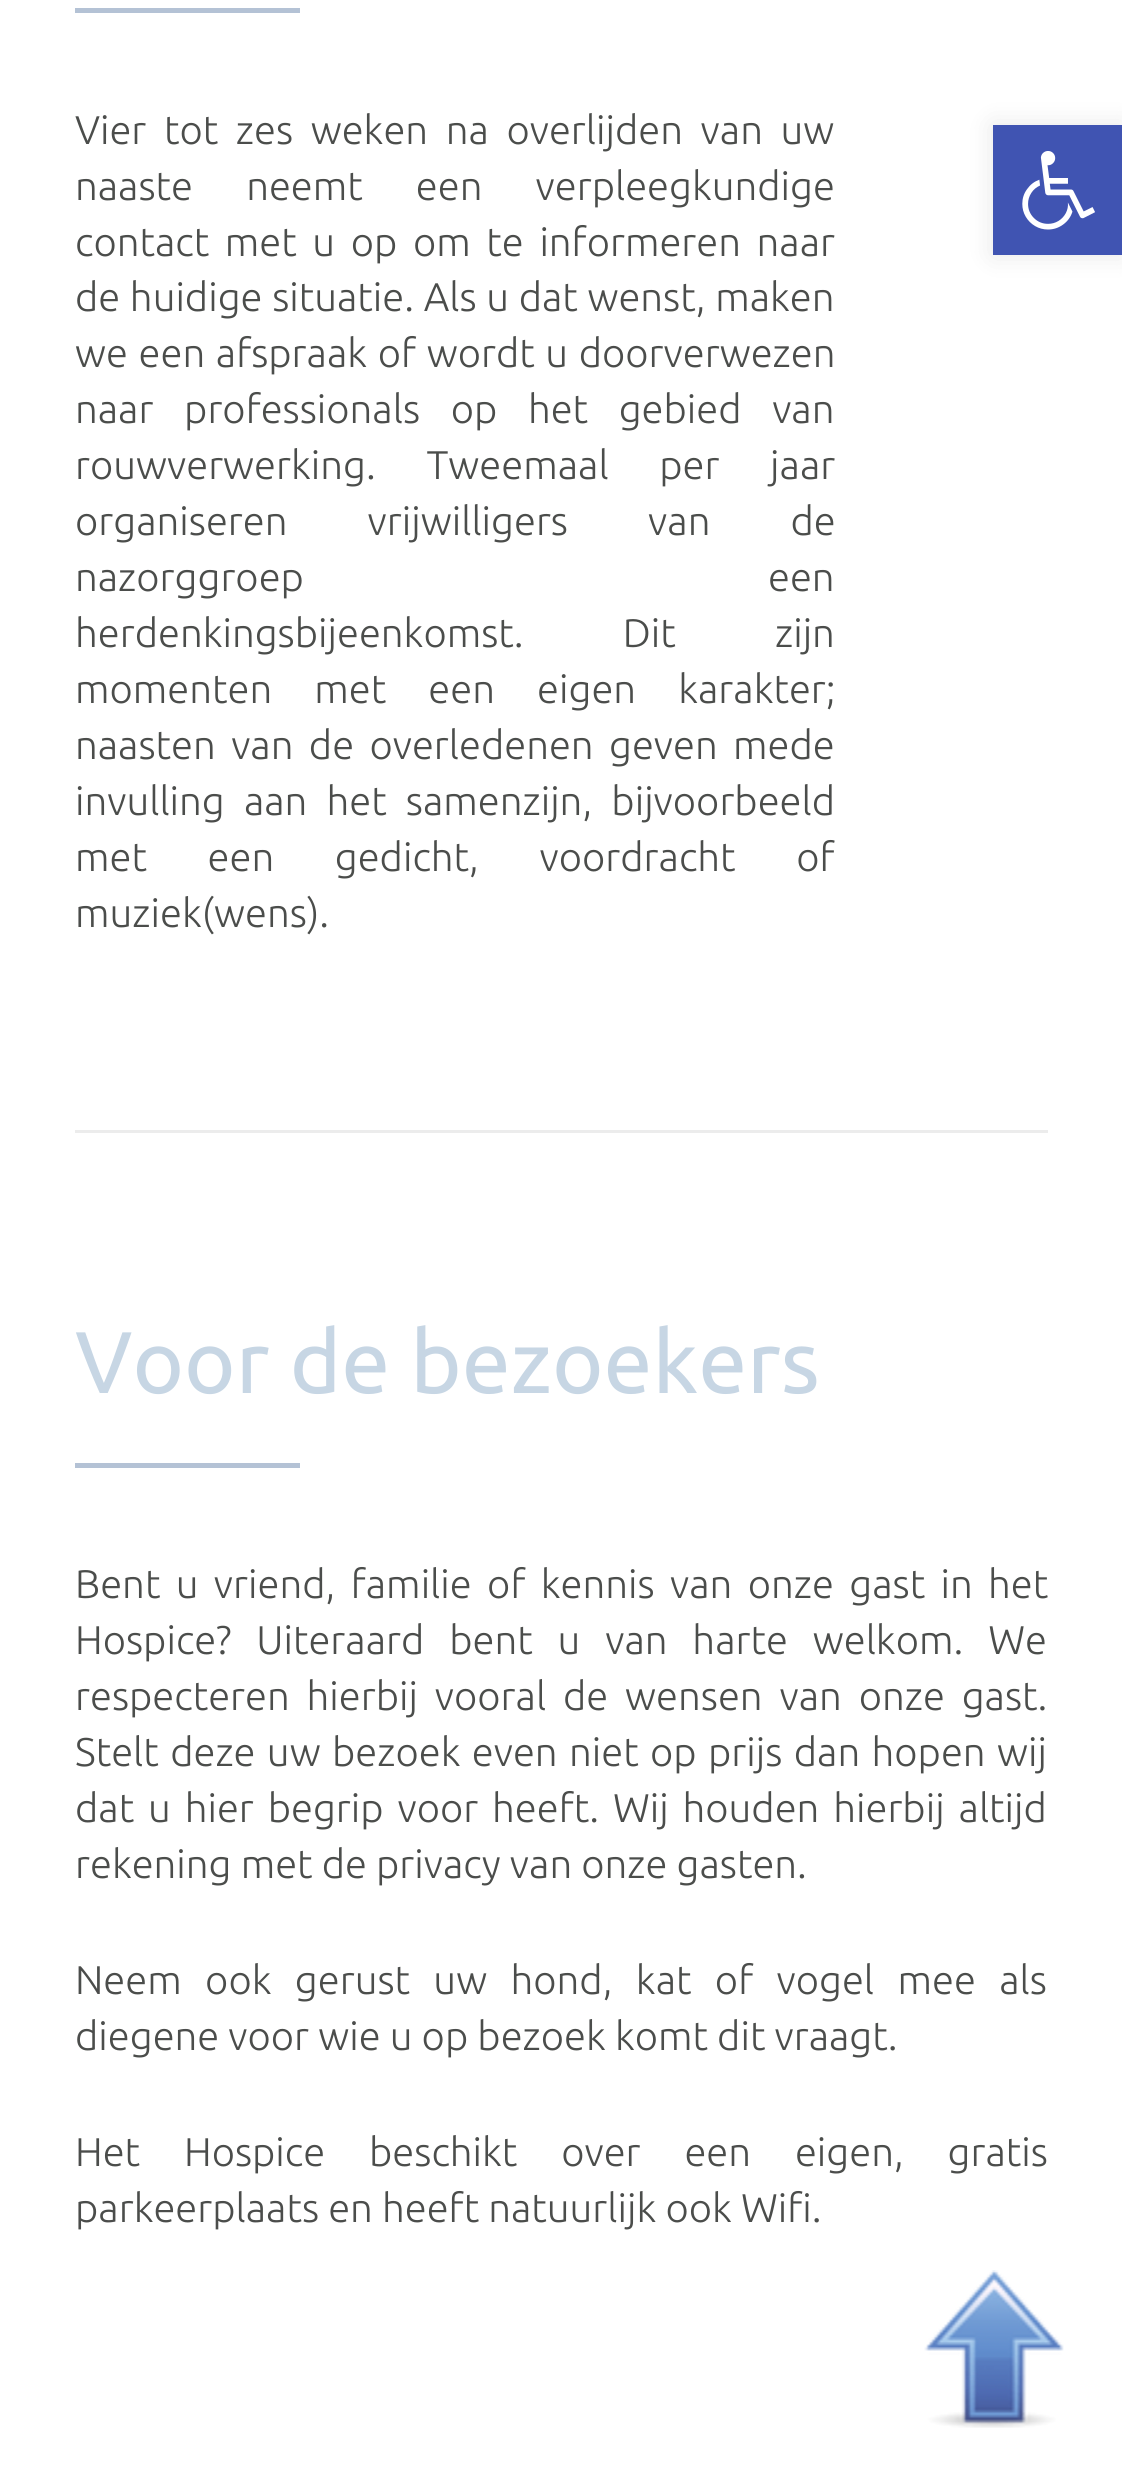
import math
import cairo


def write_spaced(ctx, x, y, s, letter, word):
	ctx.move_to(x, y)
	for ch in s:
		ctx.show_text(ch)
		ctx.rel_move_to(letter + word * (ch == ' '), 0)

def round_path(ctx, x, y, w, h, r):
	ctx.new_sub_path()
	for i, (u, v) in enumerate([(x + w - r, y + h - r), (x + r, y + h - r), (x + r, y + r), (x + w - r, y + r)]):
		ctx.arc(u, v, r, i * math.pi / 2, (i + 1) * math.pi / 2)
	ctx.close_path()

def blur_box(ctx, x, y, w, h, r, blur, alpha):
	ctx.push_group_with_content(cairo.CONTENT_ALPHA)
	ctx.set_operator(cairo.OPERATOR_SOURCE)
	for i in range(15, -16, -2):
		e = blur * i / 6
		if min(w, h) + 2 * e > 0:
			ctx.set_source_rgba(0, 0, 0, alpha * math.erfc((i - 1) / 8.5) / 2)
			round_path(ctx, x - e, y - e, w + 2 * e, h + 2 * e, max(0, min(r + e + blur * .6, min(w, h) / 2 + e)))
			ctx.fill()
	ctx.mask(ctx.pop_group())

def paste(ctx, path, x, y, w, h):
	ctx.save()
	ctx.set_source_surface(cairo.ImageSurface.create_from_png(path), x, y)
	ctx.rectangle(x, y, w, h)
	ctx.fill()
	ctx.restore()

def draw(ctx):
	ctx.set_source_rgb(1, 1, 1)
	ctx.paint()
	ctx.set_source_rgb(0, 0, 0)
	blur_box(ctx, 993, 125, 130, 130, 0, 12.5, 0.1)
	ctx.set_source_rgb(0.251, 0.329, 0.698)
	ctx.rectangle(993, 125, 129, 130)
	ctx.fill()
	paste(ctx, 'media/1.png', 1022, 151, 73, 79)
	ctx.set_source_rgb(0.706, 0.761, 0.835)
	ctx.rectangle(75, 8, 225, 5)
	ctx.fill()
	ctx.select_font_face('Ubuntu Light')
	ctx.set_font_size(40)
	ctx.set_source_rgb(0.294, 0.302, 0.294)
	write_spaced(ctx, 75, 144, 'Vier tot zes weken na overlijden van uw', 0, 8.5)
	write_spaced(ctx, 75, 200, 'naaste neemt een verpleegkundige', 0, 44)
	write_spaced(ctx, 75, 256, 'contact met u op om te informeren naar', 0, 6.5)
	write_spaced(ctx, 75, 311, 'de huidige situatie. Als u dat wenst, maken', 0, 0.5)
	write_spaced(ctx, 75, 367, 'we een afspraak of wordt u doorverwezen', 0, 1.5)
	write_spaced(ctx, 75, 423, 'naar professionals op het gebied van', 0, 21.5)
	write_spaced(ctx, 75, 479, 'rouwverwerking. Tweemaal per jaar', 0, 41.5)
	write_spaced(ctx, 75, 535, 'organiseren vrijwilligers van de', 0, 71)
	write_spaced(ctx, 75, 591, 'nazorggroep een', 0, 455)
	write_spaced(ctx, 75, 647, 'herdenkingsbijeenkomst. Dit zijn', 0, 90)
	write_spaced(ctx, 75, 703, 'momenten met een eigen karakter;', 0, 33)
	write_spaced(ctx, 75, 759, 'naasten van de overledenen geven mede', 0, 6.25)
	write_spaced(ctx, 75, 815, 'invulling aan het samenzijn, bijvoorbeeld', 0, 10)
	write_spaced(ctx, 75, 871, 'met een gedicht, voordracht of', 0, 51.5)
	ctx.move_to(75, 927)
	ctx.show_text('muziek(wens).')
	ctx.set_source_rgb(0.922, 0.922, 0.922)
	ctx.rectangle(75, 1130, 973, 3)
	ctx.fill()
	ctx.select_font_face('Ubuntu')
	ctx.set_font_size(87.5)
	ctx.set_source_rgb(0.78, 0.839, 0.894)
	ctx.move_to(75, 1393)
	ctx.show_text('Voor de bezoekers')
	ctx.set_source_rgb(0.706, 0.761, 0.835)
	ctx.rectangle(75, 1463, 225, 5)
	ctx.fill()
	ctx.select_font_face('Ubuntu Light')
	ctx.set_font_size(40)
	ctx.set_source_rgb(0.294, 0.302, 0.294)
	write_spaced(ctx, 75, 1598, 'Bent u vriend, familie of kennis van onze gast in het', 0, 6.25)
	write_spaced(ctx, 75, 1654, 'Hospice? Uiteraard bent u van harte welkom. We', 0, 15.75)
	write_spaced(ctx, 75, 1710, 'respecteren hierbij vooral de wensen van onze gast.', 0, 7.75)
	write_spaced(ctx, 75, 1766, 'Stelt deze uw bezoek even niet op prijs dan hopen wij', 0, 2.25)
	write_spaced(ctx, 75, 1822, 'dat u hier begrip voor heeft. Wij houden hierbij altijd', 0, 4.75)
	ctx.move_to(75, 1878)
	ctx.show_text('rekening met de privacy van onze gasten.')
	write_spaced(ctx, 75, 1994, 'Neem ook gerust uw hond, kat of vogel mee als', 0, 14.25)
	ctx.move_to(75, 2050)
	ctx.show_text('diegene voor wie u op bezoek komt dit vraagt.')
	write_spaced(ctx, 75, 2166, 'Het Hospice beschikt over een eigen, gratis', 0, 34.75)
	ctx.move_to(75, 2222)
	ctx.show_text('parkeerplaats en heeft natuurlijk ook Wifi.')
	paste(ctx, 'media/2.png', 924, 2270, 140, 158)


surface = cairo.ImageSurface(cairo.FORMAT_RGB24, 1122, 2479)
ctx = cairo.Context(surface)
options = cairo.FontOptions()
options.set_hint_metrics(cairo.HINT_METRICS_OFF)
options.set_hint_style(cairo.HINT_STYLE_NONE)
ctx.set_font_options(options)
ctx.set_miter_limit(4)
draw(ctx)
surface.write_to_png('image.png')
